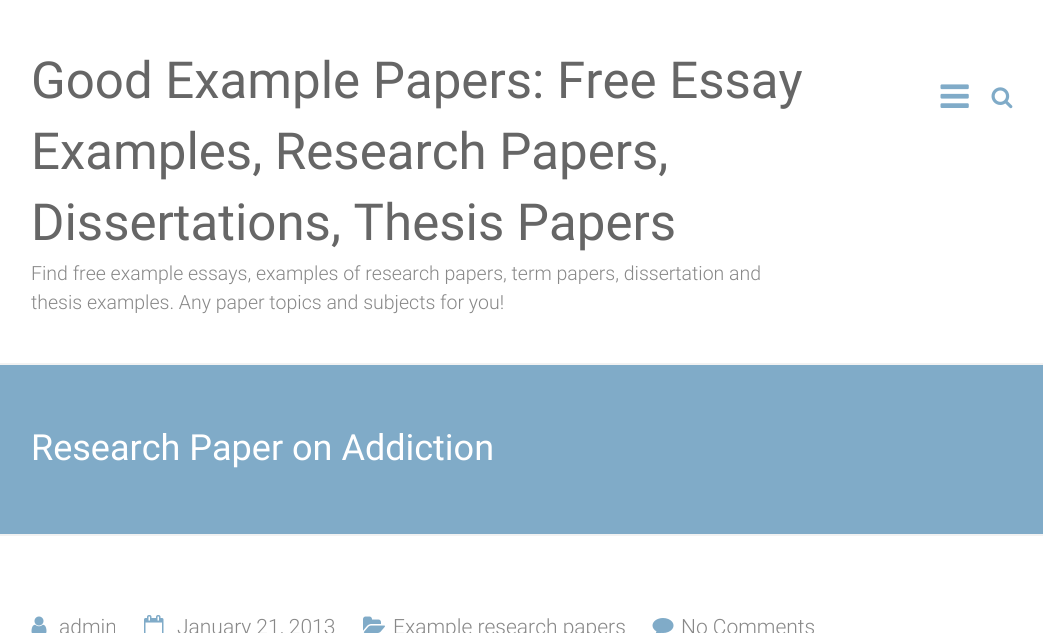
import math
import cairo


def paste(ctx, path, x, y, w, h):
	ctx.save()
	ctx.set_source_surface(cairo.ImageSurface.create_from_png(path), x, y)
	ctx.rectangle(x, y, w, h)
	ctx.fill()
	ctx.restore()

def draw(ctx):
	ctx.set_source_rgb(1, 1, 1)
	ctx.paint()
	ctx.set_source_rgb(0.949, 0.949, 0.949)
	ctx.rectangle(0, 363, 1043, 2)
	ctx.fill()
	ctx.select_font_face('Roboto')
	ctx.set_font_size(51)
	ctx.set_source_rgb(0.4, 0.4, 0.4)
	for x, y, s in [
		(31, 98, 'Good Example Papers: Free Essay'),
		(31, 169, 'Examples, Research Papers,'),
		(31, 240, 'Dissertations, Thesis Papers'),
	]:
		ctx.move_to(x, y)
		ctx.show_text(s)
	ctx.select_font_face('Roboto Light')
	ctx.set_font_size(19.5)
	ctx.set_source_rgb(0.533, 0.533, 0.533)
	ctx.move_to(31, 280)
	ctx.show_text('Find free example essays, examples of research papers, term papers, dissertation and')
	ctx.move_to(31, 309)
	ctx.show_text('thesis examples. Any paper topics and subjects for you!')
	paste(ctx, 'media/1.png', 940, 84, 29, 24)
	paste(ctx, 'media/2.png', 991, 87, 22, 22)
	ctx.set_source_rgb(0.502, 0.671, 0.784)
	ctx.rectangle(0, 365, 1043, 169)
	ctx.fill()
	ctx.set_source_rgb(0.949, 0.949, 0.949)
	ctx.rectangle(0, 534, 1043, 2)
	ctx.fill()
	ctx.select_font_face('Roboto')
	ctx.set_font_size(36)
	ctx.set_source_rgb(1, 1, 1)
	ctx.move_to(31, 460)
	ctx.show_text('Research Paper on Addiction')
	paste(ctx, 'media/3.png', 31, 616, 16, 17)
	ctx.select_font_face('Roboto Light')
	ctx.set_font_size(21)
	ctx.set_source_rgb(0.533, 0.533, 0.533)
	ctx.move_to(59, 634)
	ctx.show_text('admin')
	paste(ctx, 'media/4.png', 144, 615, 20, 18)
	ctx.move_to(177, 634)
	ctx.show_text('January 21, 2013')
	paste(ctx, 'media/5.png', 363, 616, 22, 17)
	ctx.move_to(393, 634)
	ctx.show_text('Example research papers')
	paste(ctx, 'media/6.png', 652, 618, 22, 15)
	ctx.move_to(681, 634)
	ctx.show_text('No Comments')


surface = cairo.ImageSurface(cairo.FORMAT_RGB24, 1043, 633)
ctx = cairo.Context(surface)
options = cairo.FontOptions()
options.set_hint_metrics(cairo.HINT_METRICS_OFF)
options.set_hint_style(cairo.HINT_STYLE_NONE)
ctx.set_font_options(options)
ctx.set_miter_limit(4)
draw(ctx)
surface.write_to_png('image.png')
